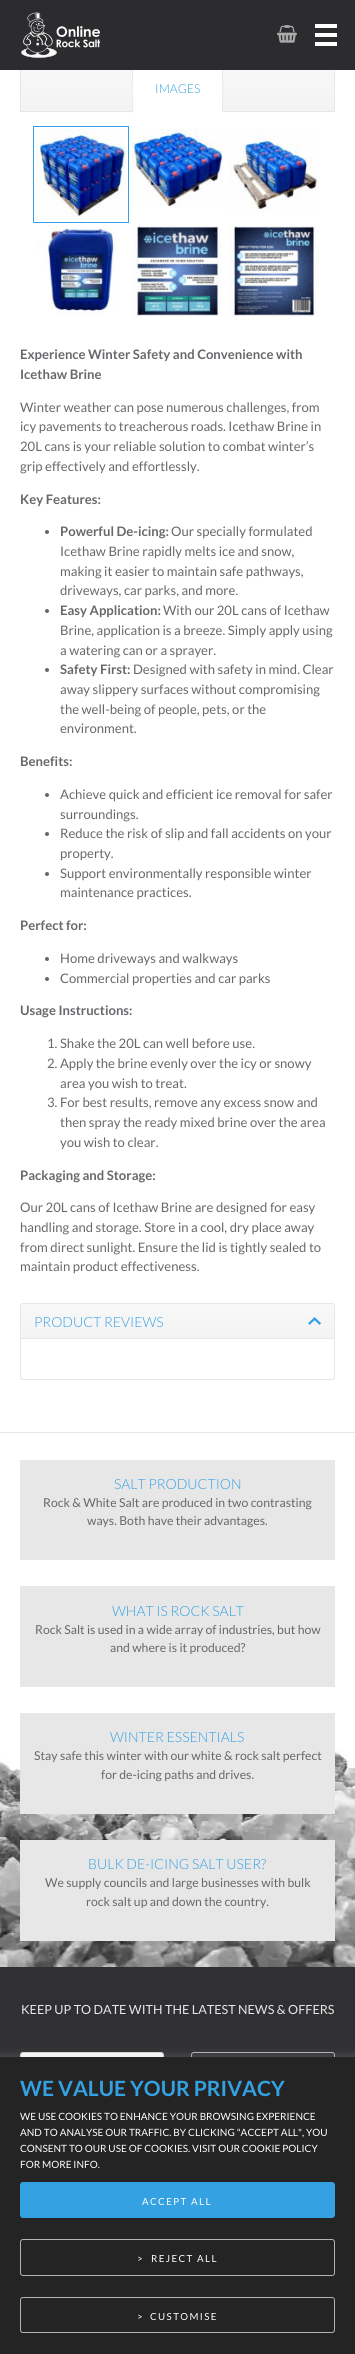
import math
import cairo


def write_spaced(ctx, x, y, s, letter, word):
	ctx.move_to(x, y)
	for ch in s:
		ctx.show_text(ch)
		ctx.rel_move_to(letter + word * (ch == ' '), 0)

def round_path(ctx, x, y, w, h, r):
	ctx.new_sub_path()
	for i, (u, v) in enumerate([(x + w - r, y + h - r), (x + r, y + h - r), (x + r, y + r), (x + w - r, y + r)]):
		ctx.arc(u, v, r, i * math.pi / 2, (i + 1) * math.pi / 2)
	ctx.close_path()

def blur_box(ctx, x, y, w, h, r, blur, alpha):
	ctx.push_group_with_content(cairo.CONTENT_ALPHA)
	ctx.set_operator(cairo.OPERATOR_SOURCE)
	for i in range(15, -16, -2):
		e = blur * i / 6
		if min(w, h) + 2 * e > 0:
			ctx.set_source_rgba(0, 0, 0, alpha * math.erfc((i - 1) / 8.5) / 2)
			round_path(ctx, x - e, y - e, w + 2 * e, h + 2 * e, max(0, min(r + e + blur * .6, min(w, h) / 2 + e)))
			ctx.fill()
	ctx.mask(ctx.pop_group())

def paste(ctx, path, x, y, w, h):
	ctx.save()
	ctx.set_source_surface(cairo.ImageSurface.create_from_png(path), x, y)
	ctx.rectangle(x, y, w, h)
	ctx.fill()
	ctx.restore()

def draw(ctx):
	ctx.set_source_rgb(1, 1, 1)
	ctx.paint()
	ctx.set_source_rgb(0.906, 0.906, 0.91)
	ctx.rectangle(334, 64, 1, 48)
	ctx.rectangle(20, 111, 315, 1)
	ctx.rectangle(20, 64, 1, 48)
	ctx.fill()
	gradient = cairo.LinearGradient(178, 63, 178, 111)
	gradient.add_color_stop_rgba(0, 0.973, 0.973, 0.973, 1)
	gradient.add_color_stop_rgba(1, 0.953, 0.953, 0.957, 1)
	ctx.set_source(gradient)
	ctx.rectangle(21, 70, 313, 41)
	ctx.fill()
	ctx.set_source_rgb(1, 1, 1)
	ctx.rectangle(132, 70, 91, 42)
	ctx.fill()
	ctx.set_source_rgb(0.906, 0.906, 0.91)
	ctx.new_path()
	ctx.move_to(223, 113)
	ctx.curve_to(223, 108, 224, 69, 222, 67)
	ctx.line_to(221, 68)
	ctx.curve_to(223, 69, 222, 107, 222, 112)
	ctx.close_path()
	ctx.fill()
	ctx.set_source_rgb(1, 1, 1)
	ctx.new_path()
	ctx.move_to(223, 113)
	ctx.line_to(222, 112)
	ctx.line_to(133, 112)
	ctx.line_to(132, 113)
	ctx.close_path()
	ctx.fill()
	ctx.set_source_rgb(0.906, 0.906, 0.91)
	ctx.new_path()
	ctx.move_to(132, 113)
	ctx.line_to(133, 112)
	ctx.curve_to(133, 107, 132, 69, 134, 68)
	ctx.line_to(133, 67)
	ctx.line_to(132, 69)
	ctx.close_path()
	ctx.fill()
	ctx.set_source_rgb(0.173, 0.173, 0.184)
	ctx.rectangle(0, 0, 355, 70)
	ctx.fill()
	paste(ctx, 'media/1.png', 21, 12, 80, 46)
	paste(ctx, 'media/2.png', 277, 25, 20, 18)
	ctx.set_source_rgb(1, 1, 1)
	ctx.rectangle(315, 24, 22, 4)
	ctx.rectangle(315, 33, 22, 4)
	ctx.rectangle(315, 42, 22, 4)
	ctx.fill()
	ctx.select_font_face('Lato Light')
	ctx.set_font_size(12.25)
	ctx.set_source_rgb(0.2, 0.631, 0.886)
	ctx.move_to(155, 93)
	ctx.show_text('IMAGES')
	ctx.rectangle(33.5, 126.5, 95, 96)
	ctx.set_line_width(1)
	ctx.stroke()
	paste(ctx, 'media/3.png', 36, 129, 90, 90)
	paste(ctx, 'media/4.png', 132, 129, 91, 79)
	paste(ctx, 'media/5.png', 229, 129, 90, 84)
	paste(ctx, 'media/6.png', 36, 226, 84, 90)
	paste(ctx, 'media/7.png', 132, 226, 91, 90)
	paste(ctx, 'media/8.png', 229, 226, 90, 90)
	ctx.select_font_face('Lato', cairo.FONT_SLANT_NORMAL, cairo.FONT_WEIGHT_BOLD)
	ctx.set_font_size(13.1)
	ctx.set_source_rgb(0.408, 0.408, 0.424)
	ctx.move_to(20, 359)
	ctx.show_text('Experience Winter Safety and Convenience with')
	ctx.move_to(20, 379)
	ctx.show_text('Icethaw Brine')
	ctx.select_font_face('Lato')
	for x, y, s in [
		(20, 412, 'Winter weather can pose numerous challenges, from'),
		(20, 431, 'icy pavements to treacherous roads. Icethaw Brine in'),
		(20, 451, '20L cans is your reliable solution to combat winter’s'),
		(20, 471, 'grip effectively and effortlessly.'),
	]:
		ctx.move_to(x, y)
		ctx.show_text(s)
	ctx.select_font_face('Lato', cairo.FONT_SLANT_NORMAL, cairo.FONT_WEIGHT_BOLD)
	ctx.move_to(20, 504)
	ctx.show_text('Key Features:')
	ctx.new_path()
	ctx.arc(47, 532, 2, 0, 2 * math.pi)
	ctx.fill()
	ctx.move_to(60, 536)
	ctx.show_text('Powerful De-icing:')
	ctx.select_font_face('Lato')
	for x, y, s in [
		(171, 536, 'Our specially formulated'),
		(60, 556, 'Icethaw Brine rapidly melts ice and snow,'),
		(60, 576, 'making it easier to maintain safe pathways,'),
		(60, 595, 'driveways, car parks, and more.'),
	]:
		ctx.move_to(x, y)
		ctx.show_text(s)
	ctx.new_path()
	ctx.arc(47, 611, 2, 0, 2 * math.pi)
	ctx.fill()
	ctx.select_font_face('Lato', cairo.FONT_SLANT_NORMAL, cairo.FONT_WEIGHT_BOLD)
	ctx.move_to(60, 615)
	ctx.show_text('Easy Application:')
	ctx.select_font_face('Lato')
	for x, y, s in [
		(163, 615, 'With our 20L cans of Icethaw'),
		(60, 635, 'Brine, application is a breeze. Simply apply using'),
		(60, 655, 'a watering can or a sprayer.'),
	]:
		ctx.move_to(x, y)
		ctx.show_text(s)
	ctx.new_path()
	ctx.arc(47, 670, 2, 0, 2 * math.pi)
	ctx.fill()
	ctx.select_font_face('Lato', cairo.FONT_SLANT_NORMAL, cairo.FONT_WEIGHT_BOLD)
	ctx.move_to(60, 674)
	ctx.show_text('Safety First:')
	ctx.select_font_face('Lato')
	for x, y, s in [
		(133, 674, 'Designed with safety in mind. Clear'),
		(60, 694, 'away slippery surfaces without compromising'),
		(60, 714, 'the well-being of people, pets, or the'),
		(60, 733, 'environment.'),
	]:
		ctx.move_to(x, y)
		ctx.show_text(s)
	ctx.select_font_face('Lato', cairo.FONT_SLANT_NORMAL, cairo.FONT_WEIGHT_BOLD)
	ctx.move_to(20, 766)
	ctx.show_text('Benefits:')
	ctx.new_path()
	ctx.arc(47, 795, 2, 0, 2 * math.pi)
	ctx.fill()
	ctx.select_font_face('Lato')
	ctx.move_to(60, 799)
	ctx.show_text('Achieve quick and efficient ice removal for safer')
	ctx.move_to(60, 819)
	ctx.show_text('surroundings.')
	ctx.new_path()
	ctx.arc(47, 834, 2, 0, 2 * math.pi)
	ctx.fill()
	ctx.move_to(60, 838)
	ctx.show_text('Reduce the risk of slip and fall accidents on your')
	ctx.move_to(60, 858)
	ctx.show_text('property.')
	ctx.new_path()
	ctx.arc(47, 874, 2, 0, 2 * math.pi)
	ctx.fill()
	ctx.move_to(60, 878)
	ctx.show_text('Support environmentally responsible winter')
	ctx.move_to(60, 897)
	ctx.show_text('maintenance practices.')
	ctx.select_font_face('Lato', cairo.FONT_SLANT_NORMAL, cairo.FONT_WEIGHT_BOLD)
	ctx.move_to(20, 930)
	ctx.show_text('Perfect for:')
	ctx.new_path()
	ctx.arc(47, 959, 2, 0, 2 * math.pi)
	ctx.fill()
	ctx.select_font_face('Lato')
	ctx.move_to(60, 963)
	ctx.show_text('Home driveways and walkways')
	ctx.new_path()
	ctx.arc(47, 979, 2, 0, 2 * math.pi)
	ctx.fill()
	ctx.move_to(60, 983)
	ctx.show_text('Commercial properties and car parks')
	ctx.select_font_face('Lato', cairo.FONT_SLANT_NORMAL, cairo.FONT_WEIGHT_BOLD)
	ctx.move_to(20, 1015)
	ctx.show_text('Usage Instructions:')
	ctx.select_font_face('Lato')
	for x, y, s in [
		(47, 1048, '1. Shake the 20L can well before use.'),
		(47, 1068, '2. Apply the brine evenly over the icy or snowy'),
		(60, 1088, 'area you wish to treat.'),
		(47, 1107, '3. For best results, remove any excess snow and'),
		(60, 1127, 'then spray the ready mixed brine over the area'),
		(60, 1147, 'you wish to clear.'),
	]:
		ctx.move_to(x, y)
		ctx.show_text(s)
	ctx.select_font_face('Lato', cairo.FONT_SLANT_NORMAL, cairo.FONT_WEIGHT_BOLD)
	ctx.move_to(20, 1180)
	ctx.show_text('Packaging and Storage:')
	ctx.select_font_face('Lato')
	for x, y, s in [
		(20, 1212, 'Our 20L cans of Icethaw Brine are designed for easy'),
		(20, 1232, 'handling and storage. Store in a cool, dry place away'),
		(20, 1252, 'from direct sunlight. Ensure the lid is tightly sealed to'),
		(20, 1271, 'maintain product effectiveness.'),
	]:
		ctx.move_to(x, y)
		ctx.show_text(s)
	ctx.save()
	ctx.new_path()
	ctx.move_to(23, 1303)
	ctx.line_to(332, 1303)
	ctx.curve_to(333.5, 1303, 335, 1304.5, 335, 1306)
	ctx.line_to(335, 1339)
	ctx.line_to(20, 1339)
	ctx.line_to(20, 1306)
	ctx.curve_to(20, 1304.5, 21.5, 1303, 23, 1303)
	ctx.close_path()
	ctx.clip()
	gradient = cairo.LinearGradient(178, 1304, 178, 1338)
	gradient.add_color_stop_rgba(0, 0.973, 0.973, 0.973, 1)
	gradient.add_color_stop_rgba(1, 0.953, 0.953, 0.957, 1)
	ctx.set_source(gradient)
	ctx.rectangle(20, 1304, 315, 34)
	ctx.fill()
	ctx.restore()
	ctx.new_path()
	ctx.move_to(23, 1303.5)
	ctx.line_to(332, 1303.5)
	ctx.curve_to(333.5, 1303.5, 334.5, 1304.5, 334.5, 1306)
	ctx.line_to(334.5, 1338.5)
	ctx.line_to(20.5, 1338.5)
	ctx.line_to(20.5, 1306)
	ctx.curve_to(20.5, 1304.5, 21.5, 1303.5, 23, 1303.5)
	ctx.close_path()
	ctx.set_source_rgb(0.906, 0.906, 0.91)
	ctx.stroke()
	ctx.select_font_face('Lato Light')
	ctx.set_font_size(14)
	ctx.set_source_rgb(0.2, 0.631, 0.886)
	ctx.move_to(34, 1327)
	ctx.show_text('PRODUCT REVIEWS')
	paste(ctx, 'media/9.png', 308, 1317, 13, 8)
	ctx.set_source_rgb(0.906, 0.906, 0.91)
	ctx.set_fill_rule(cairo.FILL_RULE_EVEN_ODD)
	ctx.new_path()
	ctx.move_to(20, 1339)
	ctx.line_to(335, 1339)
	ctx.line_to(335, 1377)
	ctx.curve_to(335, 1379, 334, 1380, 332, 1380)
	ctx.line_to(23, 1380)
	ctx.curve_to(21, 1380, 20, 1379, 20, 1377)
	ctx.close_path()
	ctx.move_to(21, 1339)
	ctx.line_to(334, 1339)
	ctx.line_to(334, 1377)
	ctx.curve_to(334, 1378, 333, 1379, 332, 1379)
	ctx.line_to(23, 1379)
	ctx.curve_to(22, 1379, 21, 1378, 21, 1377)
	ctx.close_path()
	ctx.fill()
	paste(ctx, 'media/10.png', 0, 1740, 355, 227)
	ctx.rectangle(0, 1432, 355, 1)
	ctx.fill()
	ctx.rectangle(20, 1460, 315, 100)
	ctx.fill()
	ctx.set_source_rgb(0.2, 0.631, 0.886)
	ctx.move_to(114, 1489)
	ctx.show_text('SALT PRODUCTION')
	ctx.select_font_face('Lato')
	ctx.set_font_size(12.25)
	ctx.set_source_rgb(0.408, 0.408, 0.424)
	ctx.move_to(43, 1507)
	ctx.show_text('Rock & White Salt are produced in two contrasting')
	ctx.move_to(87, 1525)
	ctx.show_text('ways. Both have their advantages.')
	ctx.set_source_rgb(0.906, 0.906, 0.91)
	ctx.rectangle(20, 1586, 315, 101)
	ctx.fill()
	ctx.select_font_face('Lato Light')
	ctx.set_font_size(14)
	ctx.set_source_rgb(0.2, 0.631, 0.886)
	ctx.move_to(112, 1616)
	ctx.show_text('WHAT IS ROCK SALT')
	ctx.select_font_face('Lato')
	ctx.set_font_size(12.25)
	ctx.set_source_rgb(0.408, 0.408, 0.424)
	ctx.move_to(35, 1634)
	ctx.show_text('Rock Salt is used in a wide array of industries, but how')
	ctx.move_to(110, 1652)
	ctx.show_text('and where is it produced?')
	ctx.set_source_rgb(0.906, 0.906, 0.91)
	ctx.rectangle(20, 1713, 315, 101)
	ctx.fill()
	ctx.select_font_face('Lato Light')
	ctx.set_font_size(14)
	ctx.set_source_rgb(0.2, 0.631, 0.886)
	ctx.move_to(110, 1742)
	ctx.show_text('WINTER ESSENTIALS')
	ctx.select_font_face('Lato')
	ctx.set_font_size(12.25)
	ctx.set_source_rgb(0.408, 0.408, 0.424)
	ctx.move_to(34, 1760)
	ctx.show_text('Stay safe this winter with our white & rock salt perfect')
	ctx.move_to(101, 1779)
	ctx.show_text('for de-icing paths and drives.')
	ctx.set_source_rgb(0.906, 0.906, 0.91)
	ctx.rectangle(20, 1840, 315, 101)
	ctx.fill()
	ctx.select_font_face('Lato Light')
	ctx.set_font_size(14)
	ctx.set_source_rgb(0.2, 0.631, 0.886)
	ctx.move_to(88, 1869)
	ctx.show_text('BULK DE-ICING SALT USER?')
	ctx.select_font_face('Lato')
	ctx.set_font_size(12.25)
	ctx.set_source_rgb(0.408, 0.408, 0.424)
	ctx.move_to(45, 1887)
	ctx.show_text('We supply councils and large businesses with bulk')
	ctx.move_to(86, 1906)
	ctx.show_text('rock salt up and down the country.')
	ctx.set_source_rgb(0.188, 0.188, 0.2)
	ctx.rectangle(0, 1967, 355, 90)
	ctx.fill()
	ctx.set_font_size(12.6)
	ctx.set_source_rgb(0.906, 0.906, 0.91)
	ctx.move_to(21, 2014)
	ctx.show_text('KEEP UP TO DATE WITH THE LATEST NEWS & OFFERS')
	ctx.set_source_rgb(1, 1, 1)
	round_path(ctx, 20.5, 2052.5, 143, 35, 2.5)
	ctx.fill_preserve()
	ctx.set_source_rgb(0.82, 0.82, 0.82)
	ctx.stroke()
	round_path(ctx, 191.5, 2052.5, 143, 35, 2.5)
	ctx.set_source_rgb(0.698, 0.698, 0.698)
	ctx.stroke()
	ctx.set_source_rgb(0.675, 0.671, 0.671)
	blur_box(ctx, 0, 2056, 355, 297, 0, 5, 0.3)
	ctx.set_source_rgb(0.141, 0.141, 0.141)
	ctx.rectangle(0, 2057, 355, 297)
	ctx.fill()
	ctx.select_font_face('Lato', cairo.FONT_SLANT_NORMAL, cairo.FONT_WEIGHT_BOLD)
	ctx.set_font_size(21)
	ctx.set_source_rgb(0.2, 0.631, 0.886)
	ctx.move_to(20, 2096)
	ctx.show_text('WE VALUE YOUR PRIVACY')
	ctx.select_font_face('Lato')
	ctx.set_font_size(10)
	ctx.set_source_rgb(1, 1, 1)
	for x, y, s in [
		(20, 2120, 'WE USE COOKIES TO ENHANCE YOUR BROWSING EXPERIENCE'),
		(20, 2136, 'AND TO ANALYSE OUR TRAFFIC. BY CLICKING "ACCEPT ALL", YOU'),
		(20, 2152, 'CONSENT TO OUR USE OF COOKIES. VISIT OUR COOKIE POLICY'),
		(20, 2168, 'FOR MORE INFO.'),
	]:
		ctx.move_to(x, y)
		ctx.show_text(s)
	ctx.set_source_rgb(0.2, 0.631, 0.886)
	round_path(ctx, 20.5, 2182.5, 314, 35, 2.5)
	ctx.fill_preserve()
	ctx.stroke()
	ctx.set_font_size(9.75)
	ctx.set_source_rgb(1, 1, 1)
	write_spaced(ctx, 142, 2205, 'ACCEPT ALL', 1.4, 0)
	round_path(ctx, 20.5, 2239.5, 314, 36, 2.5)
	ctx.set_source_rgb(0.698, 0.698, 0.698)
	ctx.stroke()
	ctx.set_source_rgb(1, 1, 1)
	write_spaced(ctx, 137, 2262, '>', 1.4, 0)
	write_spaced(ctx, 151, 2262, 'REJECT ALL', 1.4, 0)
	round_path(ctx, 20.5, 2297.5, 314, 35, 2.5)
	ctx.set_source_rgb(0.698, 0.698, 0.698)
	ctx.stroke()
	ctx.set_source_rgb(1, 1, 1)
	write_spaced(ctx, 137, 2320, '>', 1.4, 0)
	write_spaced(ctx, 150, 2320, 'CUSTOMISE', 1.4, 0)


surface = cairo.ImageSurface(cairo.FORMAT_RGB24, 355, 2354)
ctx = cairo.Context(surface)
options = cairo.FontOptions()
options.set_hint_metrics(cairo.HINT_METRICS_OFF)
options.set_hint_style(cairo.HINT_STYLE_NONE)
ctx.set_font_options(options)
ctx.set_miter_limit(4)
draw(ctx)
surface.write_to_png('image.png')
